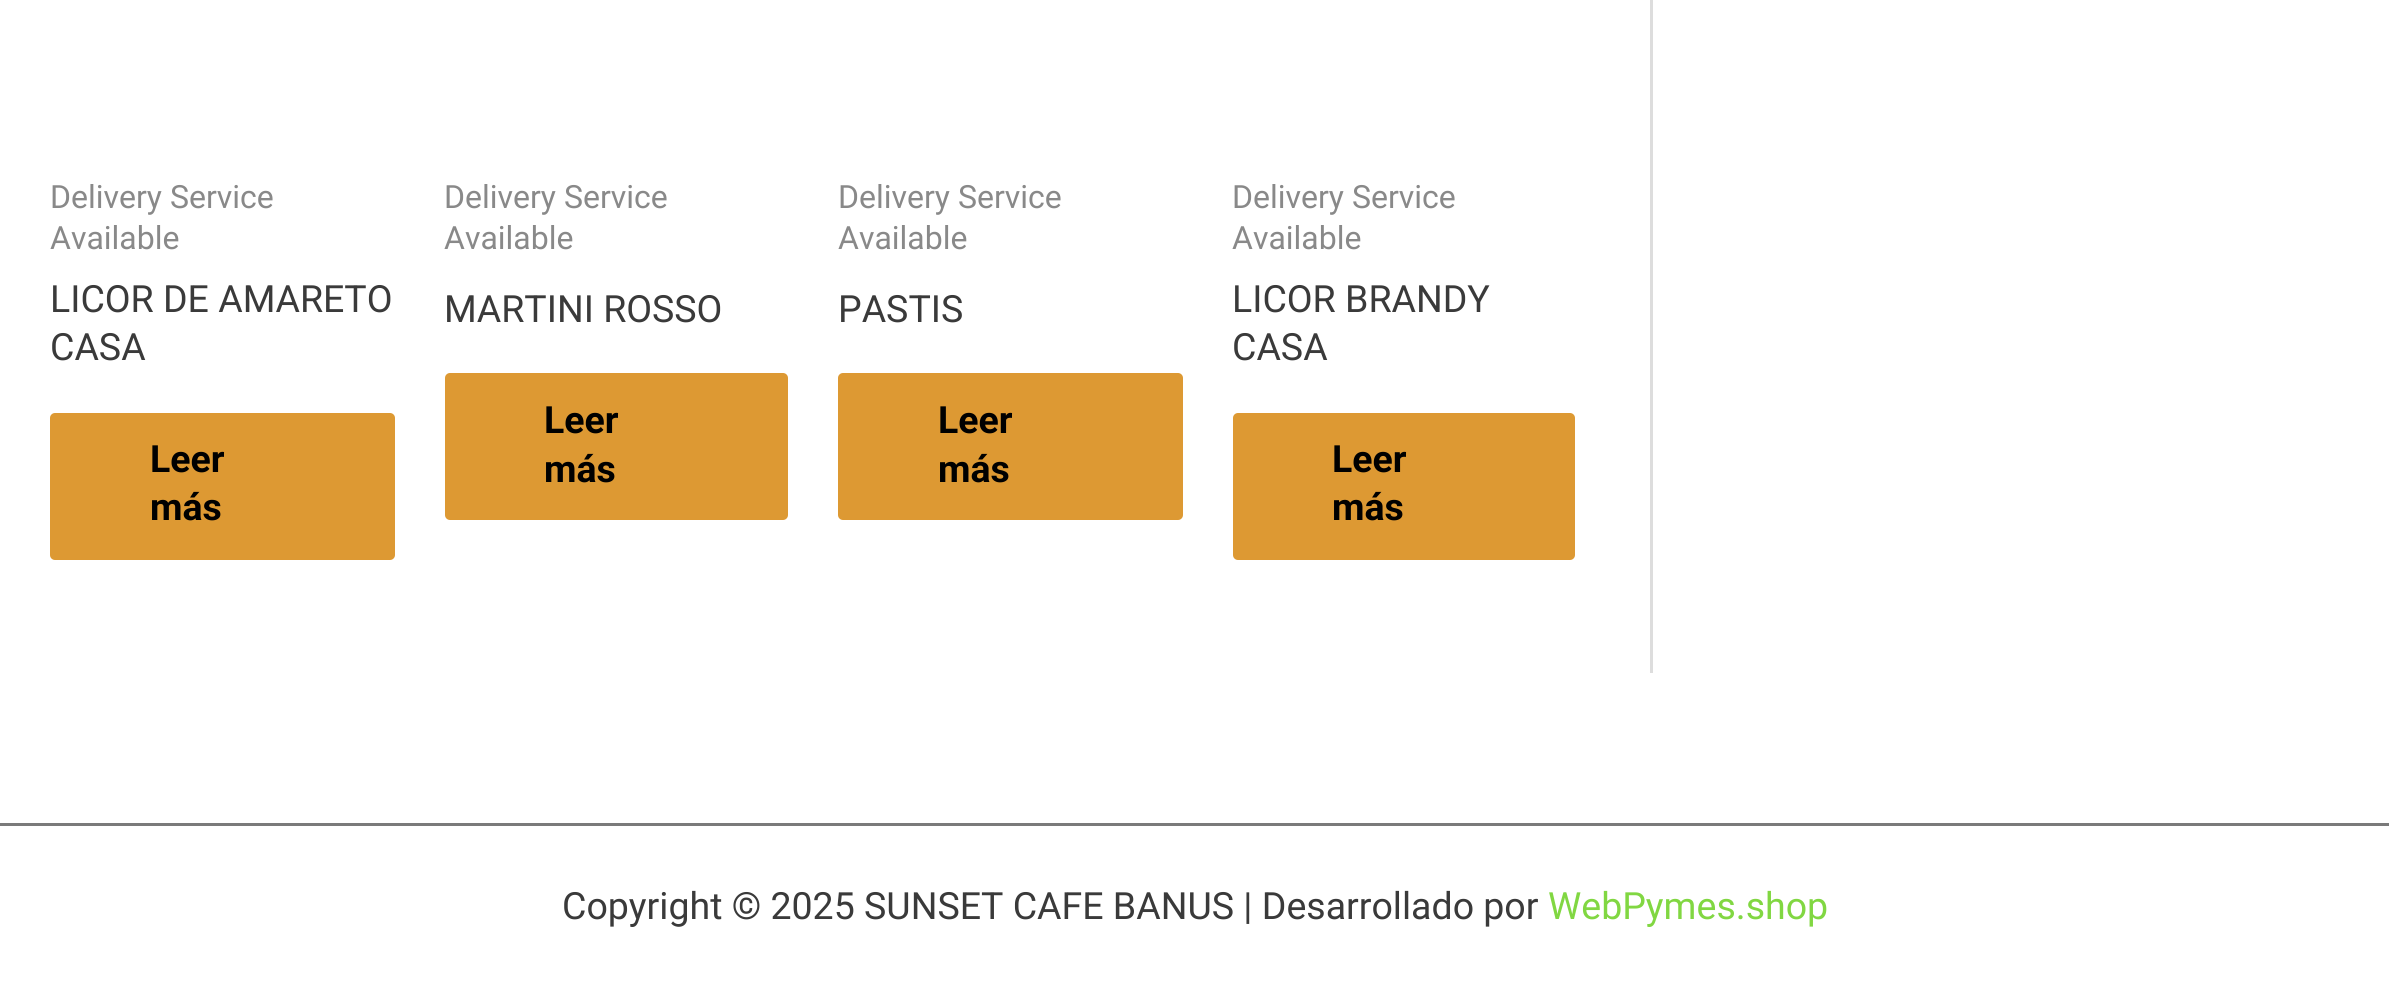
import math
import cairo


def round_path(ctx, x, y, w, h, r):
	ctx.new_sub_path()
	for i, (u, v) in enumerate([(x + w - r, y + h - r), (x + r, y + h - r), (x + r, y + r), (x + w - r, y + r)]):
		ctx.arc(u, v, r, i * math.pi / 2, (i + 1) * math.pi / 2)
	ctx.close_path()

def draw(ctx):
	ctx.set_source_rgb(1, 1, 1)
	ctx.paint()
	ctx.set_source_rgb(0.867, 0.867, 0.867)
	ctx.rectangle(1650, 0, 3, 673)
	ctx.fill()
	ctx.select_font_face('Roboto')
	ctx.set_font_size(32)
	ctx.set_source_rgb(0.537, 0.537, 0.537)
	ctx.move_to(50, 208)
	ctx.show_text('Delivery Service')
	ctx.move_to(50, 249)
	ctx.show_text('Available')
	ctx.set_font_size(37.5)
	ctx.set_source_rgb(0.227, 0.227, 0.227)
	ctx.move_to(50, 312)
	ctx.show_text('LICOR DE AMARETO')
	ctx.move_to(50, 360)
	ctx.show_text('CASA')
	ctx.set_source_rgb(0.867, 0.6, 0.2)
	round_path(ctx, 50, 413, 345, 147, 5)
	ctx.fill()
	ctx.select_font_face('Roboto', cairo.FONT_SLANT_NORMAL, cairo.FONT_WEIGHT_BOLD)
	ctx.set_source_rgb(0, 0, 0)
	ctx.move_to(150, 472)
	ctx.show_text('Leer')
	ctx.move_to(150, 520)
	ctx.show_text('más')
	ctx.select_font_face('Roboto')
	ctx.set_font_size(32)
	ctx.set_source_rgb(0.537, 0.537, 0.537)
	ctx.move_to(444, 208)
	ctx.show_text('Delivery Service')
	ctx.move_to(444, 249)
	ctx.show_text('Available')
	ctx.set_font_size(37.5)
	ctx.set_source_rgb(0.227, 0.227, 0.227)
	ctx.move_to(444, 322)
	ctx.show_text('MARTINI ROSSO')
	ctx.set_source_rgb(0.867, 0.6, 0.2)
	round_path(ctx, 445, 373, 343, 147, 5)
	ctx.fill()
	ctx.select_font_face('Roboto', cairo.FONT_SLANT_NORMAL, cairo.FONT_WEIGHT_BOLD)
	ctx.set_source_rgb(0, 0, 0)
	ctx.move_to(544, 433)
	ctx.show_text('Leer')
	ctx.move_to(544, 482)
	ctx.show_text('más')
	ctx.select_font_face('Roboto')
	ctx.set_font_size(32)
	ctx.set_source_rgb(0.537, 0.537, 0.537)
	ctx.move_to(838, 208)
	ctx.show_text('Delivery Service')
	ctx.move_to(838, 249)
	ctx.show_text('Available')
	ctx.set_font_size(37.5)
	ctx.set_source_rgb(0.227, 0.227, 0.227)
	ctx.move_to(838, 322)
	ctx.show_text('PASTIS')
	ctx.set_source_rgb(0.867, 0.6, 0.2)
	round_path(ctx, 838, 373, 345, 147, 5)
	ctx.fill()
	ctx.select_font_face('Roboto', cairo.FONT_SLANT_NORMAL, cairo.FONT_WEIGHT_BOLD)
	ctx.set_source_rgb(0, 0, 0)
	ctx.move_to(938, 433)
	ctx.show_text('Leer')
	ctx.move_to(938, 482)
	ctx.show_text('más')
	ctx.select_font_face('Roboto')
	ctx.set_font_size(32)
	ctx.set_source_rgb(0.537, 0.537, 0.537)
	ctx.move_to(1232, 208)
	ctx.show_text('Delivery Service')
	ctx.move_to(1232, 249)
	ctx.show_text('Available')
	ctx.set_font_size(37.5)
	ctx.set_source_rgb(0.227, 0.227, 0.227)
	ctx.move_to(1232, 312)
	ctx.show_text('LICOR BRANDY')
	ctx.move_to(1232, 360)
	ctx.show_text('CASA')
	ctx.set_source_rgb(0.867, 0.6, 0.2)
	round_path(ctx, 1233, 413, 342, 147, 5)
	ctx.fill()
	ctx.select_font_face('Roboto', cairo.FONT_SLANT_NORMAL, cairo.FONT_WEIGHT_BOLD)
	ctx.set_source_rgb(0, 0, 0)
	ctx.move_to(1332, 472)
	ctx.show_text('Leer')
	ctx.move_to(1332, 520)
	ctx.show_text('más')
	ctx.set_source_rgb(0.478, 0.478, 0.478)
	ctx.rectangle(0, 823, 2389, 3)
	ctx.fill()
	ctx.select_font_face('Roboto')
	ctx.set_source_rgb(0.227, 0.227, 0.227)
	ctx.move_to(562, 919)
	ctx.show_text('Copyright © 2025 SUNSET CAFE BANUS | Desarrollado por')
	ctx.set_source_rgb(0.506, 0.843, 0.259)
	ctx.move_to(1548, 919)
	ctx.show_text('WebPymes.shop')


surface = cairo.ImageSurface(cairo.FORMAT_RGB24, 2389, 996)
ctx = cairo.Context(surface)
options = cairo.FontOptions()
options.set_hint_metrics(cairo.HINT_METRICS_OFF)
options.set_hint_style(cairo.HINT_STYLE_NONE)
ctx.set_font_options(options)
ctx.set_miter_limit(4)
draw(ctx)
surface.write_to_png('image.png')
